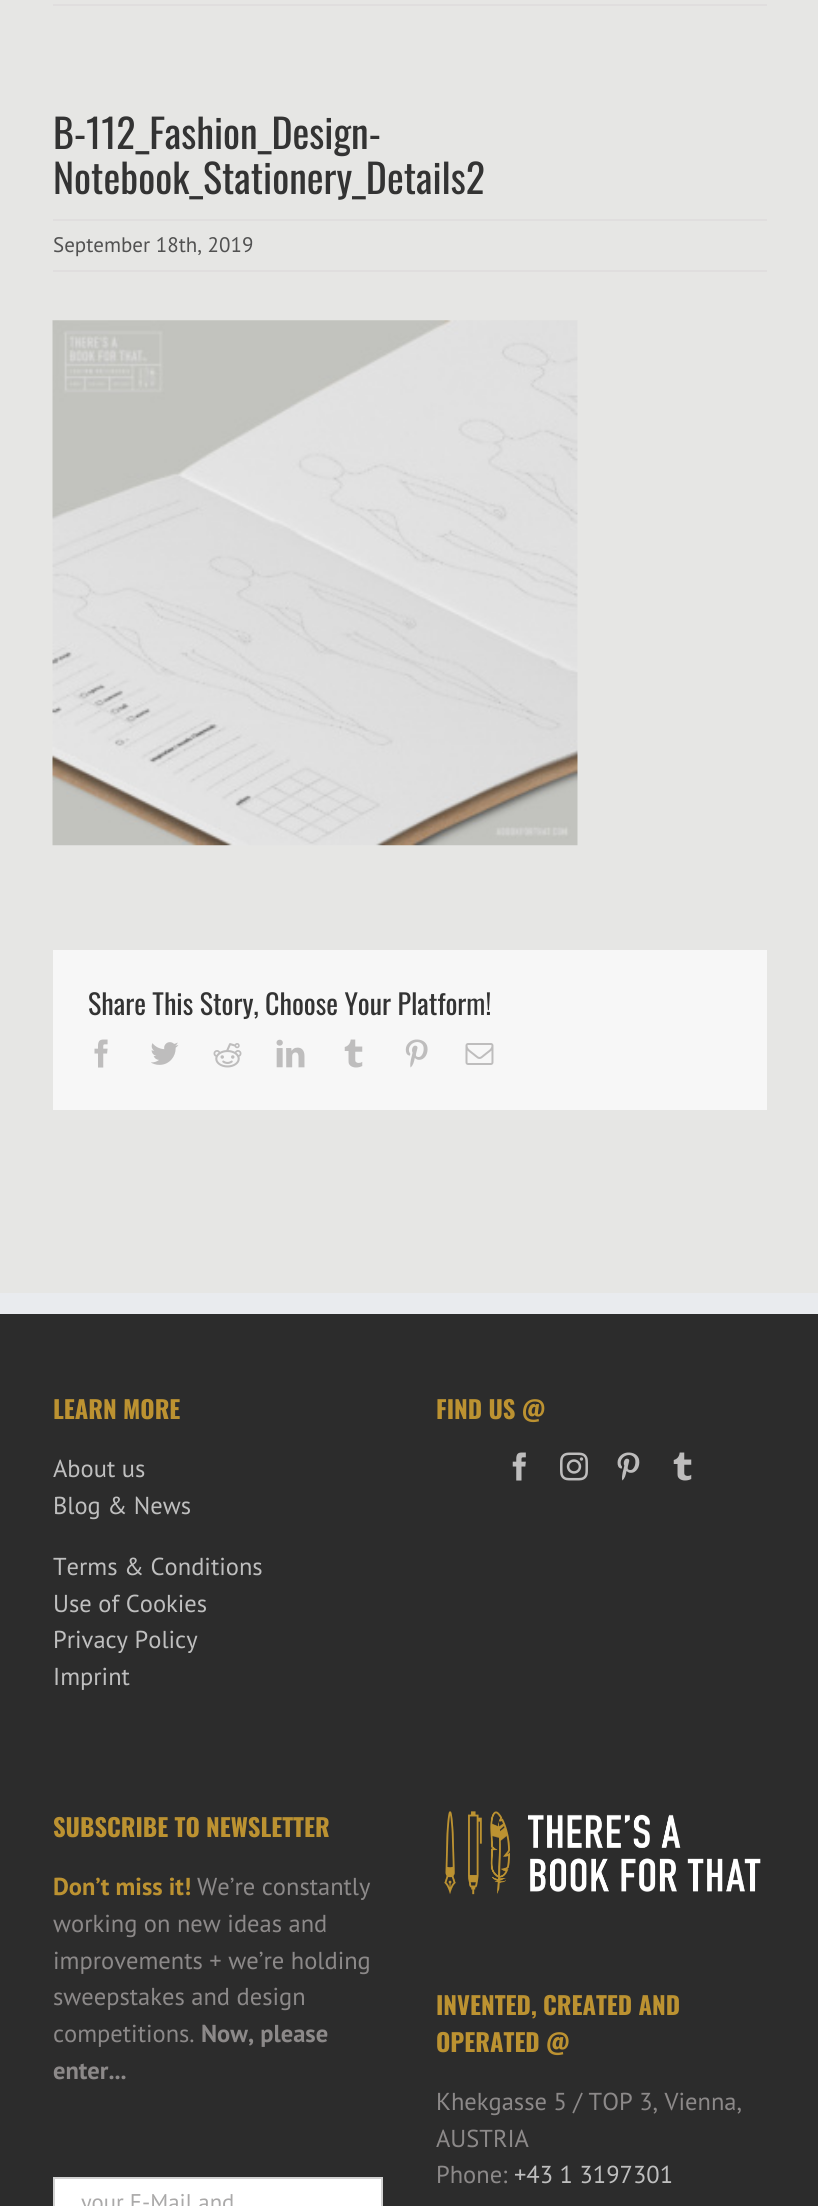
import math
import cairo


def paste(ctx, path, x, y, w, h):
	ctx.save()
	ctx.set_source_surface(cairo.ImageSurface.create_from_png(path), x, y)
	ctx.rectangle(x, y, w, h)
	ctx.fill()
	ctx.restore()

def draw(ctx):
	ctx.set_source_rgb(0.902, 0.902, 0.894)
	ctx.paint()
	ctx.set_source_rgb(0.878, 0.871, 0.871)
	ctx.rectangle(53, 4, 714, 2)
	ctx.fill()
	ctx.select_font_face('Oswald')
	ctx.set_font_size(40)
	ctx.set_source_rgb(0.2, 0.2, 0.2)
	ctx.move_to(53, 149)
	ctx.show_text('B-112_Fashion_Design-')
	ctx.move_to(53, 194)
	ctx.show_text('Notebook_Stationery_Details2')
	ctx.set_source_rgb(0.878, 0.871, 0.871)
	ctx.rectangle(53, 219, 714, 2)
	ctx.fill()
	ctx.rectangle(53, 270, 714, 2)
	ctx.fill()
	ctx.select_font_face('PT Sans')
	ctx.set_font_size(21)
	ctx.set_source_rgb(0.318, 0.318, 0.318)
	ctx.move_to(53, 252)
	ctx.show_text('September 18th, 2019')
	paste(ctx, 'media/1.png', 52, 320, 526, 526)
	ctx.set_source_rgb(0.965, 0.965, 0.965)
	ctx.rectangle(53, 950, 714, 160)
	ctx.fill()
	ctx.select_font_face('Oswald')
	ctx.set_font_size(28)
	ctx.set_source_rgb(0.2, 0.2, 0.2)
	ctx.move_to(88, 1015)
	ctx.show_text('Share This Story, Choose Your Platform!')
	paste(ctx, 'media/2.png', 94, 1039, 14, 29)
	paste(ctx, 'media/3.png', 151, 1042, 28, 23)
	paste(ctx, 'media/4.png', 213, 1043, 29, 25)
	paste(ctx, 'media/5.png', 276, 1039, 29, 29)
	paste(ctx, 'media/6.png', 344, 1039, 19, 29)
	paste(ctx, 'media/7.png', 405, 1039, 23, 29)
	paste(ctx, 'media/8.png', 465, 1043, 29, 22)
	ctx.set_source_rgb(0.173, 0.173, 0.173)
	ctx.rectangle(0, 1314, 818, 892)
	ctx.fill()
	ctx.set_source_rgb(0.914, 0.918, 0.933)
	ctx.rectangle(0, 1293, 818, 21)
	ctx.fill()
	ctx.select_font_face('Oswald', cairo.FONT_SLANT_NORMAL, cairo.FONT_WEIGHT_BOLD)
	ctx.set_font_size(24.5)
	ctx.set_source_rgb(0.737, 0.573, 0.192)
	ctx.move_to(53, 1419)
	ctx.show_text('LEARN MORE')
	ctx.select_font_face('PT Sans')
	ctx.set_source_rgb(0.749, 0.749, 0.749)
	for x, y, s in [
		(53, 1477, 'About us'),
		(53, 1514, 'Blog & News'),
		(53, 1575, 'Terms & Conditions'),
		(53, 1612, 'Use of Cookies'),
		(53, 1648, 'Privacy Policy'),
		(53, 1685, 'Imprint'),
	]:
		ctx.move_to(x, y)
		ctx.show_text(s)
	ctx.select_font_face('Oswald', cairo.FONT_SLANT_NORMAL, cairo.FONT_WEIGHT_BOLD)
	ctx.set_source_rgb(0.737, 0.573, 0.192)
	ctx.move_to(436, 1419)
	ctx.show_text('FIND US @')
	paste(ctx, 'media/9.png', 512, 1452, 14, 29)
	paste(ctx, 'media/10.png', 560, 1452, 28, 29)
	paste(ctx, 'media/11.png', 617, 1452, 23, 29)
	paste(ctx, 'media/12.png', 673, 1452, 19, 29)
	ctx.move_to(53, 1837)
	ctx.show_text('SUBSCRIBE TO NEWSLETTER')
	ctx.select_font_face('PT Sans', cairo.FONT_SLANT_NORMAL, cairo.FONT_WEIGHT_BOLD)
	ctx.move_to(53, 1895)
	ctx.show_text('Don’t miss it!')
	ctx.select_font_face('PT Sans')
	ctx.set_source_rgb(0.549, 0.537, 0.537)
	for x, y, s in [
		(197, 1895, 'We’re constantly'),
		(53, 1932, 'working on new ideas and'),
		(53, 1969, 'improvements + we’re holding'),
		(53, 2005, 'sweepstakes and design'),
		(53, 2042, 'competitions.'),
	]:
		ctx.move_to(x, y)
		ctx.show_text(s)
	ctx.select_font_face('PT Sans', cairo.FONT_SLANT_NORMAL, cairo.FONT_WEIGHT_BOLD)
	ctx.move_to(201, 2042)
	ctx.show_text('Now, please')
	ctx.move_to(53, 2079)
	ctx.show_text('enter...')
	ctx.set_source_rgb(1, 1, 1)
	ctx.rectangle(54, 2178, 328, 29)
	ctx.fill_preserve()
	ctx.set_source_rgb(0.824, 0.824, 0.824)
	ctx.stroke()
	ctx.select_font_face('PT Sans')
	ctx.set_font_size(22.75)
	ctx.set_source_rgb(0.667, 0.663, 0.663)
	ctx.move_to(81, 2210)
	ctx.show_text('your E-Mail and')
	paste(ctx, 'media/13.png', 444, 1811, 317, 84)
	ctx.select_font_face('Oswald', cairo.FONT_SLANT_NORMAL, cairo.FONT_WEIGHT_BOLD)
	ctx.set_font_size(24.5)
	ctx.set_source_rgb(0.737, 0.573, 0.192)
	ctx.move_to(436, 2015)
	ctx.show_text('INVENTED, CREATED AND')
	ctx.move_to(436, 2052)
	ctx.show_text('OPERATED @')
	ctx.select_font_face('PT Sans')
	ctx.set_source_rgb(0.549, 0.537, 0.537)
	for x, y, s in [
		(436, 2110, 'Khekgasse 5 / TOP 3, Vienna,'),
		(436, 2147, 'AUSTRIA'),
		(436, 2183, 'Phone:'),
	]:
		ctx.move_to(x, y)
		ctx.show_text(s)
	ctx.set_source_rgb(0.749, 0.749, 0.749)
	ctx.move_to(514, 2183)
	ctx.show_text('+43 1 3197301')


surface = cairo.ImageSurface(cairo.FORMAT_RGB24, 818, 2206)
ctx = cairo.Context(surface)
options = cairo.FontOptions()
options.set_hint_metrics(cairo.HINT_METRICS_OFF)
options.set_hint_style(cairo.HINT_STYLE_NONE)
ctx.set_font_options(options)
ctx.set_miter_limit(4)
draw(ctx)
surface.write_to_png('image.png')
